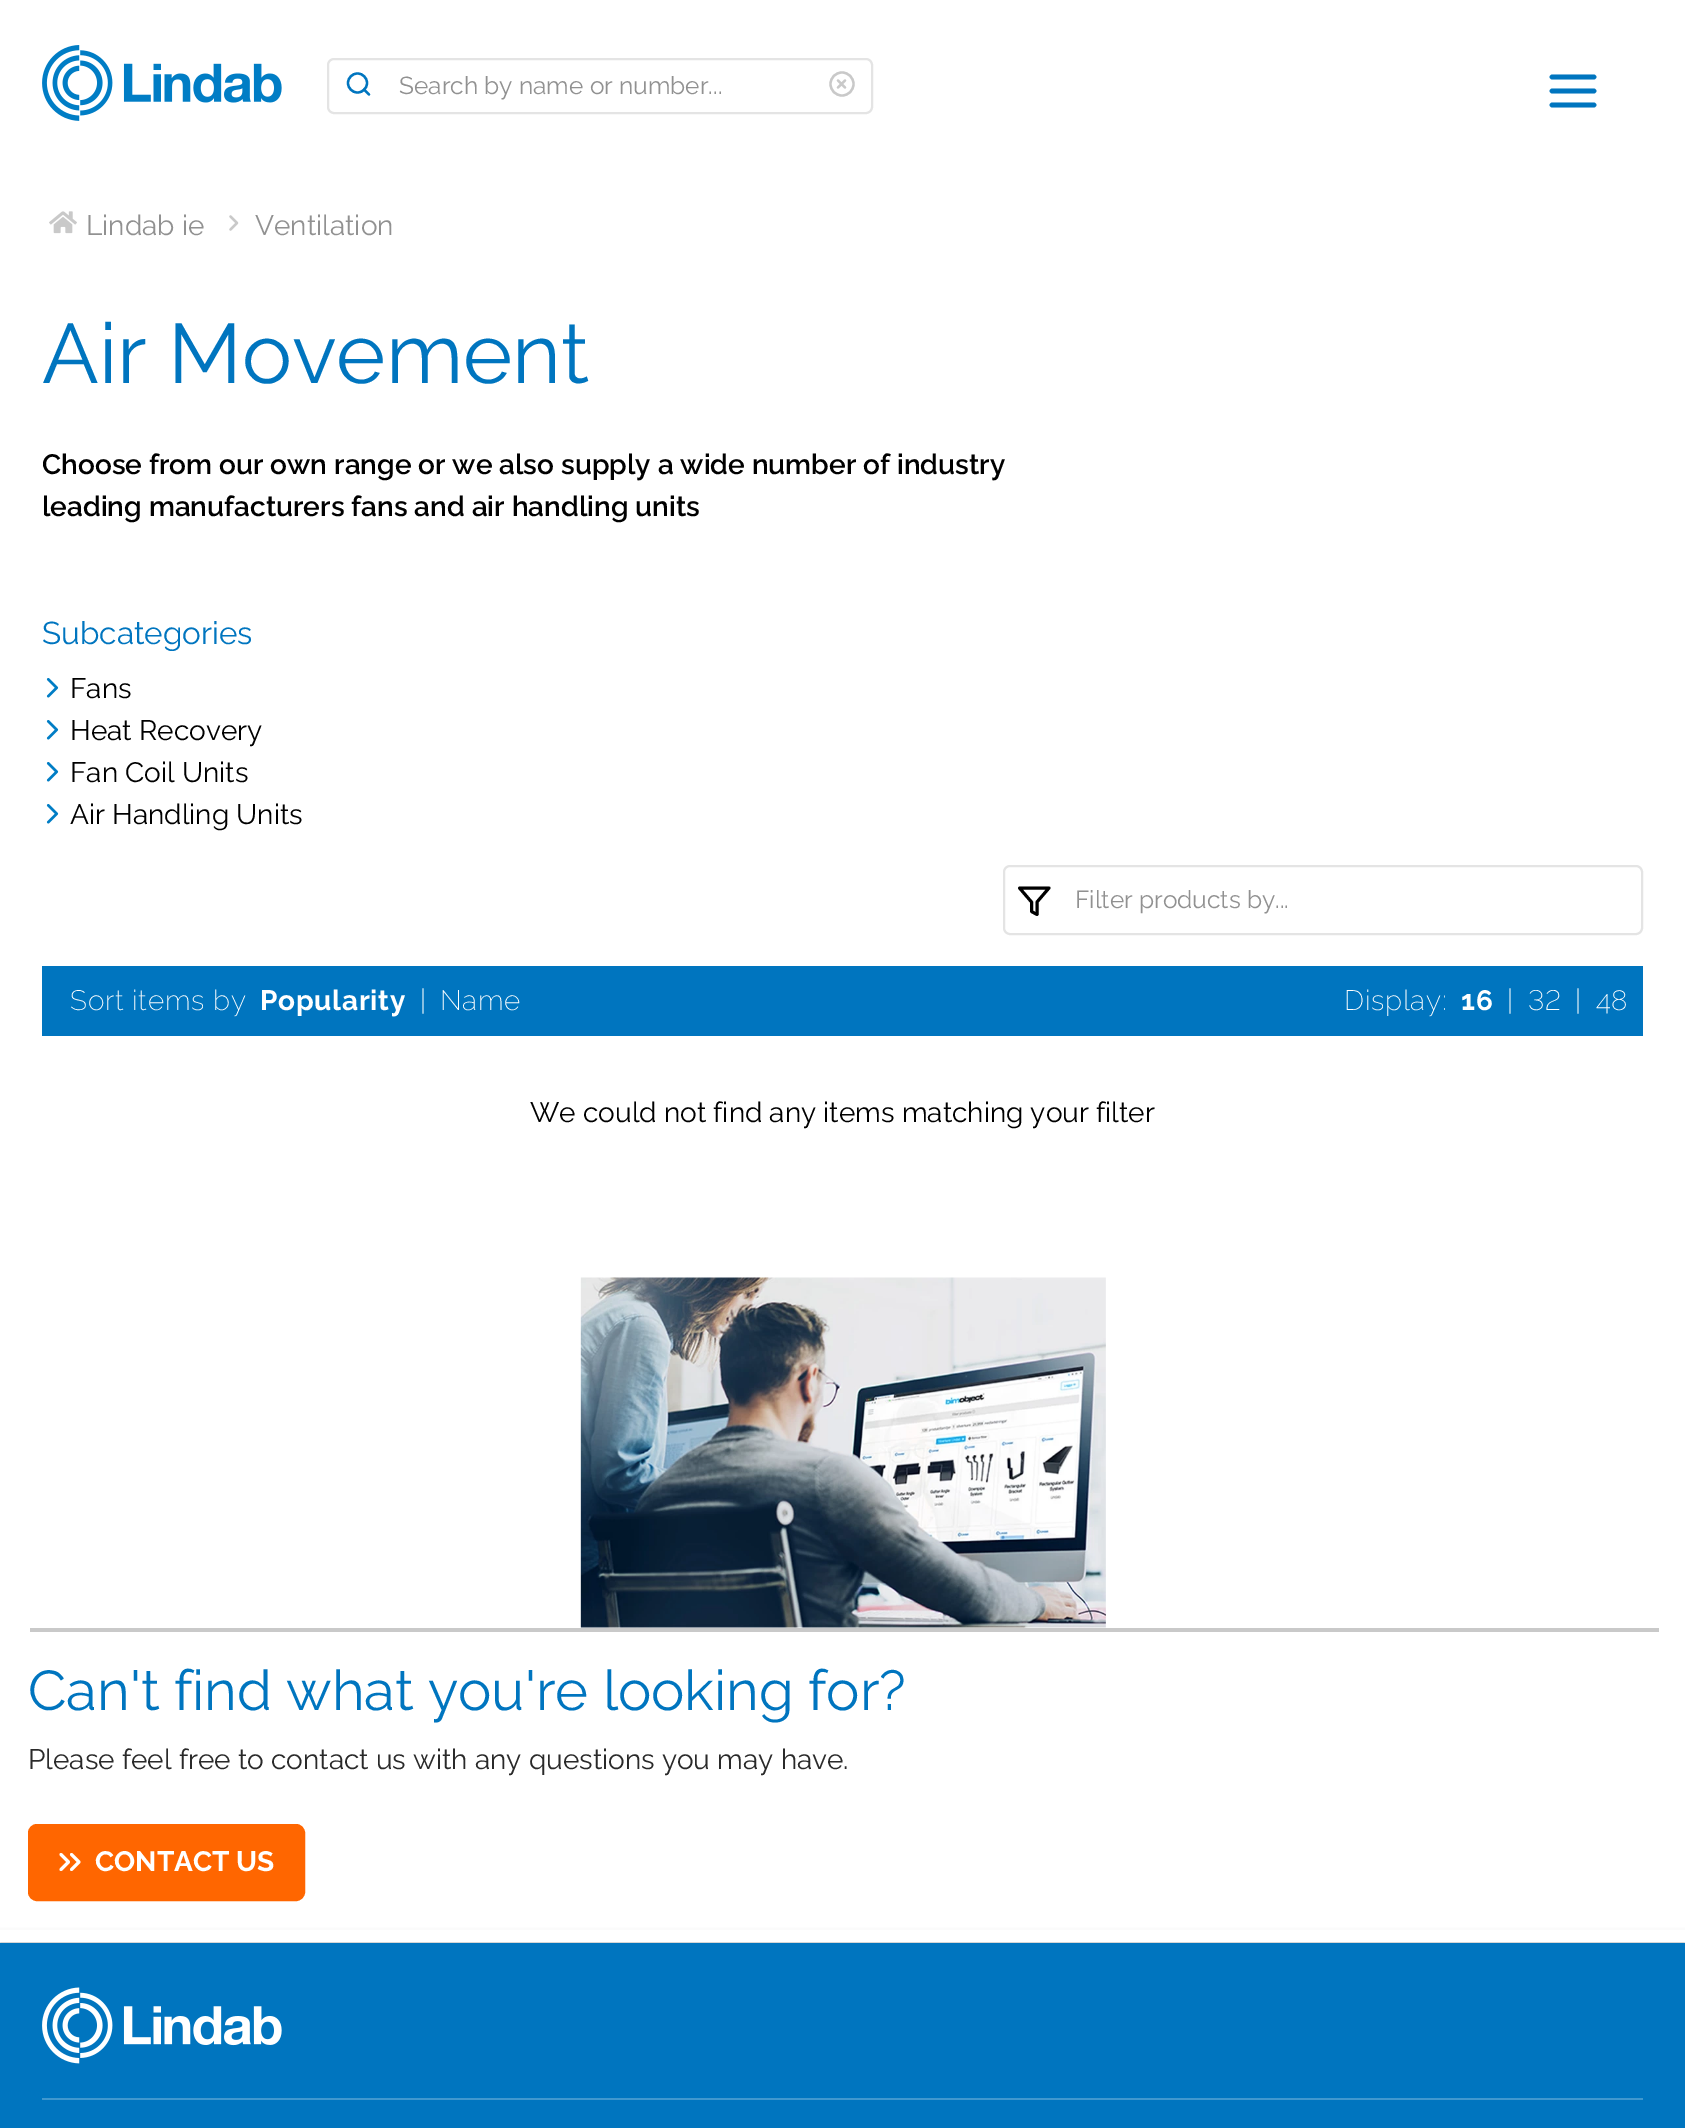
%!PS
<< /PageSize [1685 2128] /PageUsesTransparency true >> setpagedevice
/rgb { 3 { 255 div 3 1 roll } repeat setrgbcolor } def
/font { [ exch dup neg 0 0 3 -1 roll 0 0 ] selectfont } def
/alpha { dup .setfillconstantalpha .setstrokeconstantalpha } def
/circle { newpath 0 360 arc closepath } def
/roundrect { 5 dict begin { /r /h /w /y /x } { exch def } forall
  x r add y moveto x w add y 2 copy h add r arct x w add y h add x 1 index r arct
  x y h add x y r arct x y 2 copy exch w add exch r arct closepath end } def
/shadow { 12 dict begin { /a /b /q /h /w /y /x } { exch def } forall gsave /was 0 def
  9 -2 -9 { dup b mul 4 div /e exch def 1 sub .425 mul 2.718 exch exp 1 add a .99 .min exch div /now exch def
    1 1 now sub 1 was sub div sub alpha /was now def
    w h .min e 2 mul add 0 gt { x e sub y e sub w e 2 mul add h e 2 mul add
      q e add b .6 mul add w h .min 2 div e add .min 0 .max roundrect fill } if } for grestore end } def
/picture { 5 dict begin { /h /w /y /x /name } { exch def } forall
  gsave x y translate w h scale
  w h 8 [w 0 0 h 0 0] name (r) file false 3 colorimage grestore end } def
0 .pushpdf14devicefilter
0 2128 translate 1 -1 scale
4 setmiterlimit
255 255 255 rgb
0 0 1685 2128 rectfill
(img/1.rgb) 42 45 240 76 picture
228 228 228 rgb
2 setlinewidth
328 59 544 54 6 roundrect stroke
0 117 191 rgb
2.3 setlinewidth
357.5 83 9.5 circle stroke
1 setlinecap
1 setlinejoin
369 94.5 moveto 364 89.5 lineto stroke
201 201 201 rgb
0 setlinecap
0 setlinejoin
842 84 11.5 circle stroke
1 setlinecap
1 setlinejoin
845 80.5 moveto 838 87.5 lineto 838 80.5 moveto 845 87.5 lineto stroke
0 117 191 rgb
4.7 setlinewidth
1552 91 moveto 1594 91 lineto 1552 77 moveto 1594 77 lineto 1552 105 moveto 1594 105 lineto stroke
(img/2.rgb) 49 211 28 23 picture
201 201 201 rgb
2.2 setlinewidth
230.5 229.5 moveto 237 223 lineto 230.5 216.5 lineto stroke
(img/3.rgb) 46 678 13 20 picture
(img/3.rgb) 46 720 13 20 picture
(img/3.rgb) 46 762 13 20 picture
(img/3.rgb) 46 804 13 20 picture
228 228 228 rgb
2 setlinewidth
0 setlinecap
0 setlinejoin
1004 866 638 68 6 roundrect stroke
0 0 0 rgb
2.9 setlinewidth
1 setlinecap
1 setlinejoin
1049 888 moveto 1019.5 888 lineto 1031.5 902 lineto 1031.5 911.5 lineto 1037 914.5 lineto 1037 902 lineto closepath stroke
0 117 191 rgb
42 966 1601 70 rectfill
(img/4.rgb) 580 1277 526 351 picture
201 201 201 rgb
30 1628 1629 4 rectfill
255 102 0 rgb
30 1826 273 73 7 roundrect gsave fill grestore
4 setlinewidth
0 setlinecap
0 setlinejoin
stroke
255 255 255 rgb
2.9 setlinewidth
1 setlinecap
1 setlinejoin
71.5 1869.5 moveto 79 1862 lineto 71.5 1854.5 lineto 61 1869.5 moveto 68.5 1862 lineto 61 1854.5 lineto stroke
42 42 42 rgb
0 1943 1685 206 0 7 0.2 shadow
0 1943 1685 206 0 7 0.2 shadow
255 255 255 rgb
0 1930 1685 12 rectfill
0 117 191 rgb
0 1943 1685 185 rectfill
(img/5.rgb) 42 1987 240 77 picture
64 152 207 rgb
42 2098 1601 2 rectfill
/Raleway-Thin 24.5 font
145 145 145 rgb
399 94 moveto (Search by name or number...) show
/Raleway-Thin 28 font
86 235 moveto (Lindab ie) show
255 235 moveto (Ventilation) show
/Raleway-Thin 84 font
0 117 191 rgb
42 383 moveto (Air Movement) show
/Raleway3-Thin 28 font
0 0 0 rgb
42 474 moveto (Choose from our own range or we also supply a wide number of industry) show
42 516 moveto (leading manufacturers fans and air handling units) show
/Raleway-Thin 31.5 font
0 117 191 rgb
42 644 moveto (Subcategories) show
/Raleway-Thin 28 font
0 0 0 rgb
[
  [(Fans) 70 698]
  [(Heat Recovery) 70 740]
  [(Fan Coil Units) 70 782]
  [(Air Handling Units) 70 824]
] { aload pop moveto show } forall
/Raleway-Thin 24.5 font
145 145 145 rgb
1075 908 moveto (Filter products by...) show
/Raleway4-Thin 28 font
255 255 255 rgb
70 1010 moveto 0.75 0 (Sort items by) ashow
/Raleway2-Thin 28 font
260 1010 moveto 0.75 0 (Popularity) ashow
/Raleway4-Thin 28 font
420 1010 moveto 0.75 0 (|) ashow
440 1010 moveto 0.75 0 (Name) ashow
1344 1010 moveto 0.75 0 (Display:) ashow
/Raleway2-Thin 28 font
1461 1010 moveto 0.75 0 (16) ashow
/Raleway4-Thin 28 font
1507 1010 moveto 0.75 0 (|) ashow
/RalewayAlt-Thin 28 font
1528 1010 moveto 0.75 0 (32) ashow
/Raleway4-Thin 28 font
1575 1010 moveto 0.75 0 (|) ashow
1596 1010 moveto 0.75 0 (48) ashow
/Raleway-Thin 28 font
0 0 0 rgb
530 1122 moveto (We could not find any items matching your filter) show
/Raleway-Thin 56 font
0 117 191 rgb
28 1710 moveto (Can't find what you're looking for?) show
/Raleway-Thin 28 font
42 42 42 rgb
28 1769 moveto (Please feel free to contact us with any questions you may have.) show
/Raleway2-Thin 28 font
255 255 255 rgb
95 1871 moveto (CONTACT US) show
.poppdf14devicefilter showpage
